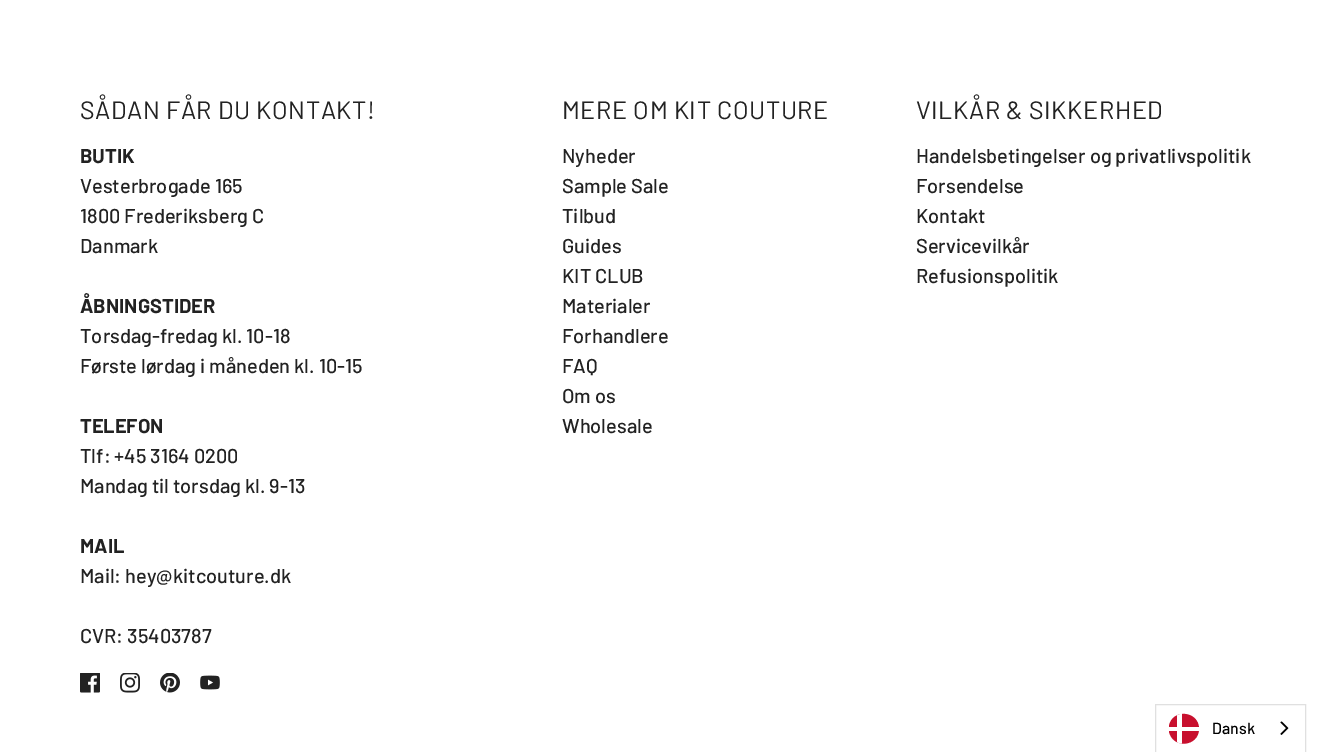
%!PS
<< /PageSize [1331 752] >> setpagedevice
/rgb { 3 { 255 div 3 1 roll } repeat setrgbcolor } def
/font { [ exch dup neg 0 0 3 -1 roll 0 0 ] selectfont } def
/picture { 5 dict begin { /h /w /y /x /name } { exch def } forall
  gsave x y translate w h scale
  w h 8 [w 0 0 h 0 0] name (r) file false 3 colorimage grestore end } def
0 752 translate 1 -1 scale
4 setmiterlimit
255 255 255 rgb
0 0 1331 752 rectfill
(img/1.rgb) 80 673 20 20 picture
(img/2.rgb) 120 673 20 20 picture
(img/3.rgb) 160 673 20 20 picture
(img/4.rgb) 200 675 20 15 picture
224 224 224 rgb
1155.5 704.5 150 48 rectstroke
200 16 46 rgb
1169 726 moveto 1172 708.5 1199 710.5 1199 729 curveto 1198.5 747 1172.5 749 1169 731.5 curveto closepath fill
255 255 255 rgb
1177 715.5 moveto 1178.5 714.5 1180 714 1182 714 curveto 1182 743.5 lineto 1180 743.5 1178.5 743 1177 742 curveto closepath fill
1169 727 30 4 rectfill
(img/5.rgb) 1280 721 9 14 picture
/Barlow-Regular 25 font
34 34 34 rgb
80 119 moveto 0.6 0 (SÅDAN FÅR DU KONTAKT!) ashow
/Barlow-Bold 20 font
80 163 moveto (BUTIK) show
/Barlow-Medium 20 font
[
  [(Vesterbrogade 165) 80 193]
  [(1800 Frederiksberg C) 80 223]
  [(Danmark) 80 253]
] { aload pop moveto show } forall
/Barlow-Bold 20 font
80 313 moveto (ÅBNINGSTIDER) show
/Barlow-Medium 20 font
80 343 moveto (Torsdag-fredag kl. 10-18) show
80 373 moveto (Første lørdag i måneden kl. 10-15) show
/Barlow-Bold 20 font
80 433 moveto (TELEFON) show
/Barlow-Medium 20 font
80 463 moveto (Tlf: +45 3164 0200) show
80 493 moveto (Mandag til torsdag kl. 9-13) show
/Barlow-Bold 20 font
80 553 moveto (MAIL) show
/Barlow-Medium 20 font
80 583 moveto (Mail: hey@kitcouture.dk) show
80 643 moveto (CVR: 35403787) show
/Barlow-Regular 25 font
562 119 moveto 0.6 0 (MERE OM KIT COUTURE) ashow
/Barlow-Medium 20 font
[
  [(Nyheder) 562 163]
  [(Sample Sale) 562 193]
  [(Tilbud) 562 223]
  [(Guides) 562 253]
  [(KIT CLUB) 562 283]
  [(Materialer) 562 313]
  [(Forhandlere) 562 343]
  [(FAQ) 562 373]
  [(Om os) 562 403]
  [(Wholesale) 562 433]
] { aload pop moveto show } forall
/Barlow-Regular 25 font
916 119 moveto 0.6 0 (VILKÅR & SIKKERHED) ashow
/Barlow-Medium 20 font
[
  [(Handelsbetingelser og privatlivspolitik) 916 163]
  [(Forsendelse) 916 193]
  [(Kontakt) 916 223]
  [(Servicevilkår) 916 253]
  [(Refusionspolitik) 916 283]
] { aload pop moveto show } forall
/Barlow-Medium 16 font
0 0 0 rgb
1212 734 moveto (Dansk) show
showpage
